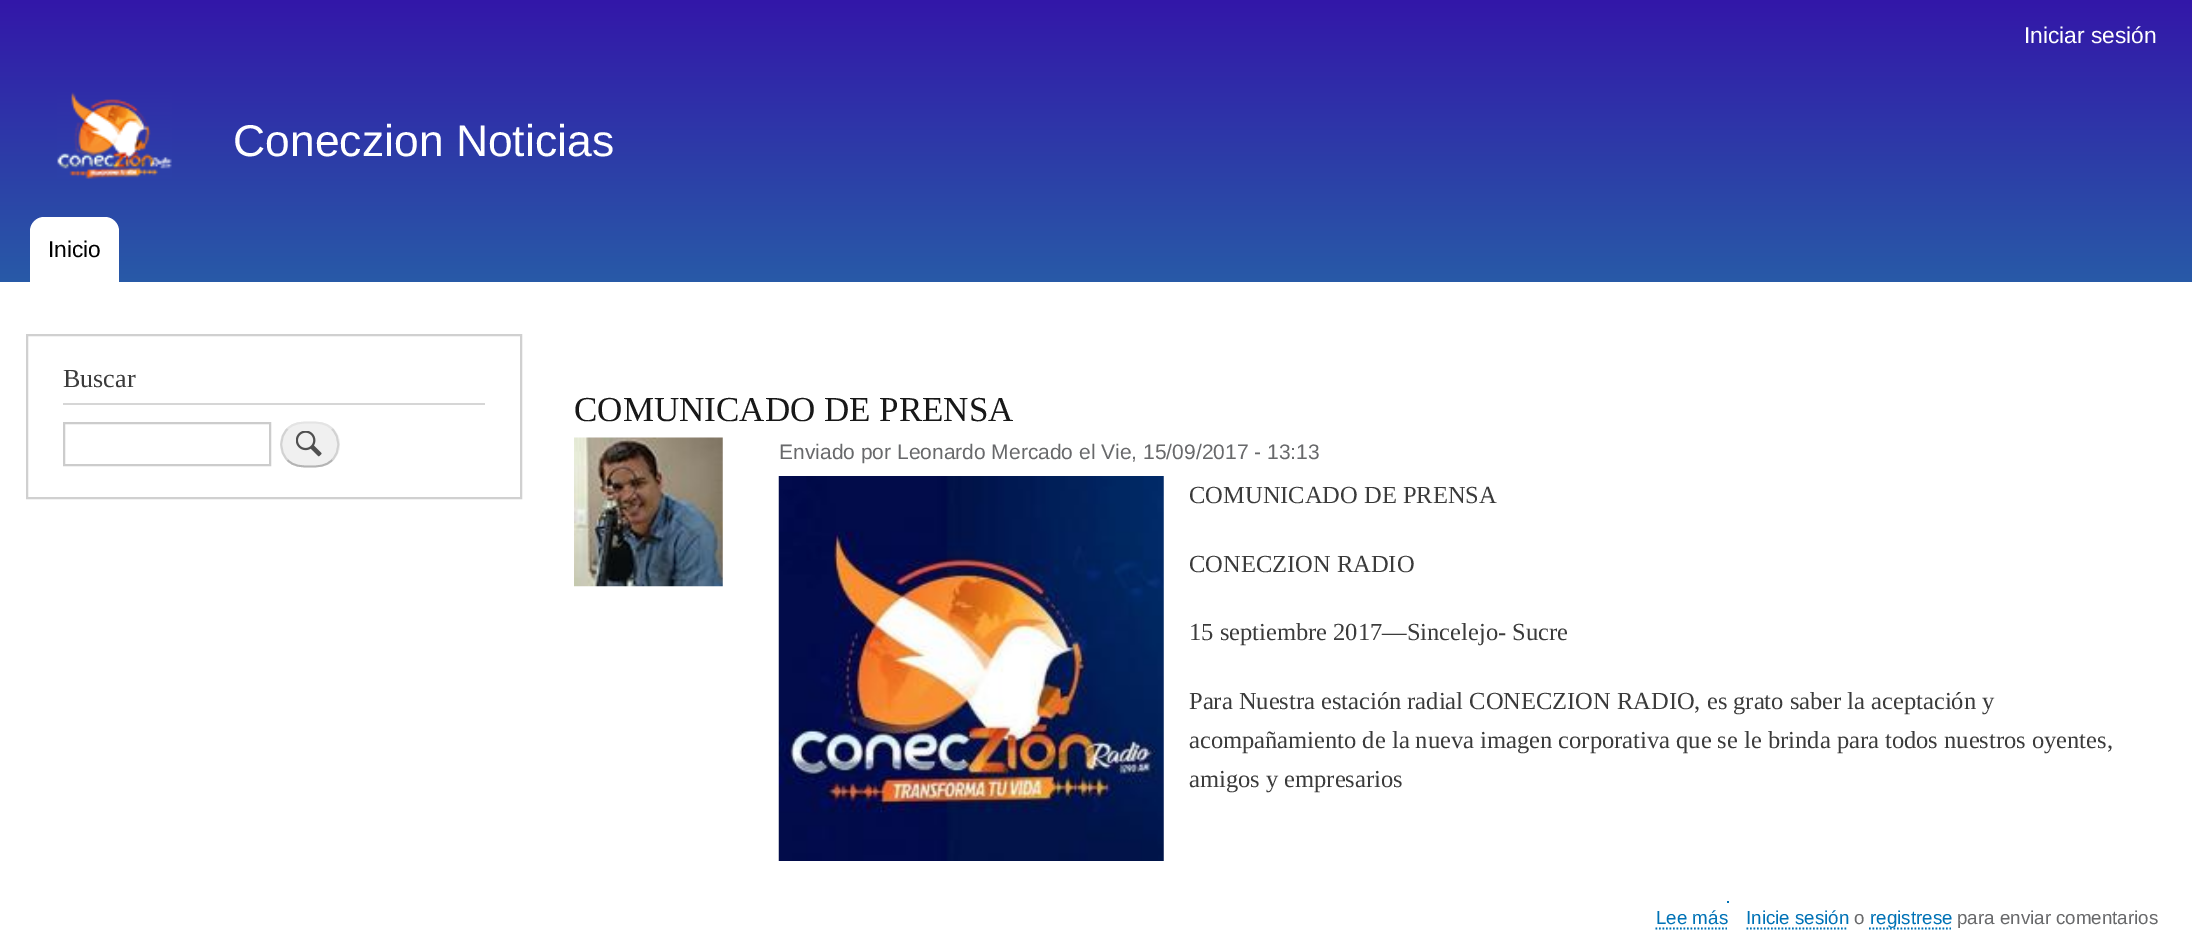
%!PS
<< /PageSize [2192 951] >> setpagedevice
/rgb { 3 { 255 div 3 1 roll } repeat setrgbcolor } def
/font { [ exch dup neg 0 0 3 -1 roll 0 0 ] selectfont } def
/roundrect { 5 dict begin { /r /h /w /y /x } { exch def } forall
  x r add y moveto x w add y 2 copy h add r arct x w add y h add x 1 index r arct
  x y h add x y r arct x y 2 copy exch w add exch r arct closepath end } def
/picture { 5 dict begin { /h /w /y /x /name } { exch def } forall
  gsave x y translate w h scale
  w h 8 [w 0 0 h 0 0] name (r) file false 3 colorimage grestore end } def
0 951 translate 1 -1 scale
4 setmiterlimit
255 255 255 rgb
0 0 2192 951 rectfill
gsave 0 0 moveto 2192 0 lineto 2192 282 lineto 0 282 lineto closepath clip newpath
<< /ShadingType 2 /ColorSpace /DeviceRGB /Coords [1096 0 1096 282] /Extend [true true] /Function << /FunctionType 2 /Domain [0 1] /C0 [0.2 0.09 0.663] /C1 [0.157 0.353 0.655] /N 1 >> >> shfill grestore
(img/1.rgb) 57 92 115 87 picture
44 217 moveto 105 217 lineto 112.5 217 119 223.5 119 231 curveto 119 282 lineto 30 282 lineto 30 231 lineto 30 223.5 36.5 217 44 217 curveto closepath fill
208 208 208 rgb
2 setlinewidth
27 335 494 163 rectstroke
214 214 214 rgb
63 403 422 2 rectfill
204 204 204 rgb
64 423 206 42 rectstroke
240 240 240 rgb
280 422 60 45 22.5 roundrect fill
(img/2.rgb) 296 431 26 26 picture
228 228 228 rgb
1.8 setlinewidth
287.5 429 moveto 293.5 422.5 301.5 422.5 310 422.5 curveto 318 422.5 326 422.5 332 429 curveto stroke
210 210 210 rgb
332 429 moveto 340.5 437.5 340.5 451.5 332 460 curveto stroke
180 180 180 rgb
332 460 moveto 326 466.5 318 466.5 310 466.5 curveto 301.5 466.5 293.5 466.5 287.5 460 curveto stroke
210 210 210 rgb
287.5 460 moveto 279 451.5 279 437.5 287.5 429 curveto stroke
(img/3.rgb) 574 437 149 150 picture
(img/4.rgb) 778 476 386 385 picture
0 114 182 rgb
[1.75 1.75] 0 setdash
1655.5 928.5 moveto 1727 928.5 lineto stroke
1727 901 2 2 rectfill
1746.5 928.5 moveto 1848 928.5 lineto stroke
1869 928.5 moveto 1951 928.5 lineto stroke
/LiberationSans-Regular 22.75 font
255 255 255 rgb
2024 43 moveto (Iniciar sesión) show
/LiberationSans-Regular 44.5 font
233 156 moveto (Coneczion Noticias) show
/LiberationSans-Regular 22.75 font
0 0 0 rgb
48 257 moveto (Inicio) show
/LiberationSerif-Regular 26 font
59 59 59 rgb
63 387 moveto (Buscar) show
/LiberationSerif-Regular 35 font
24 24 24 rgb
574 421 moveto (COMUNICADO DE PRENSA) show
/LiberationSans-Regular 21 font
104 105 107 rgb
779 459 moveto (Enviado por Leonardo Mercado el Vie, 15/09/2017 - 13:13) show
/LiberationSerif-Regular 24.5 font
59 59 59 rgb
[
  [(COMUNICADO DE PRENSA) 1189 503]
  [(CONECZION RADIO) 1189 572]
  [(15 septiembre 2017—Sincelejo- Sucre) 1189 640]
  [(Para Nuestra estación radial CONECZION RADIO, es grato saber la aceptación y) 1189 709]
  [(acompañamiento de la nueva imagen corporativa que se le brinda para todos nuestros oyentes,) 1189 748]
  [(amigos y empresarios) 1189 787]
] { aload pop moveto show } forall
/LiberationSans-Regular 18.75 font
0 114 182 rgb
1656 924 moveto (Lee más) show
1746 924 moveto (Inicie sesión) show
104 105 107 rgb
1854 924 moveto (o) show
0 114 182 rgb
1870 924 moveto (registrese) show
104 105 107 rgb
1957 924 moveto (para enviar comentarios) show
showpage
